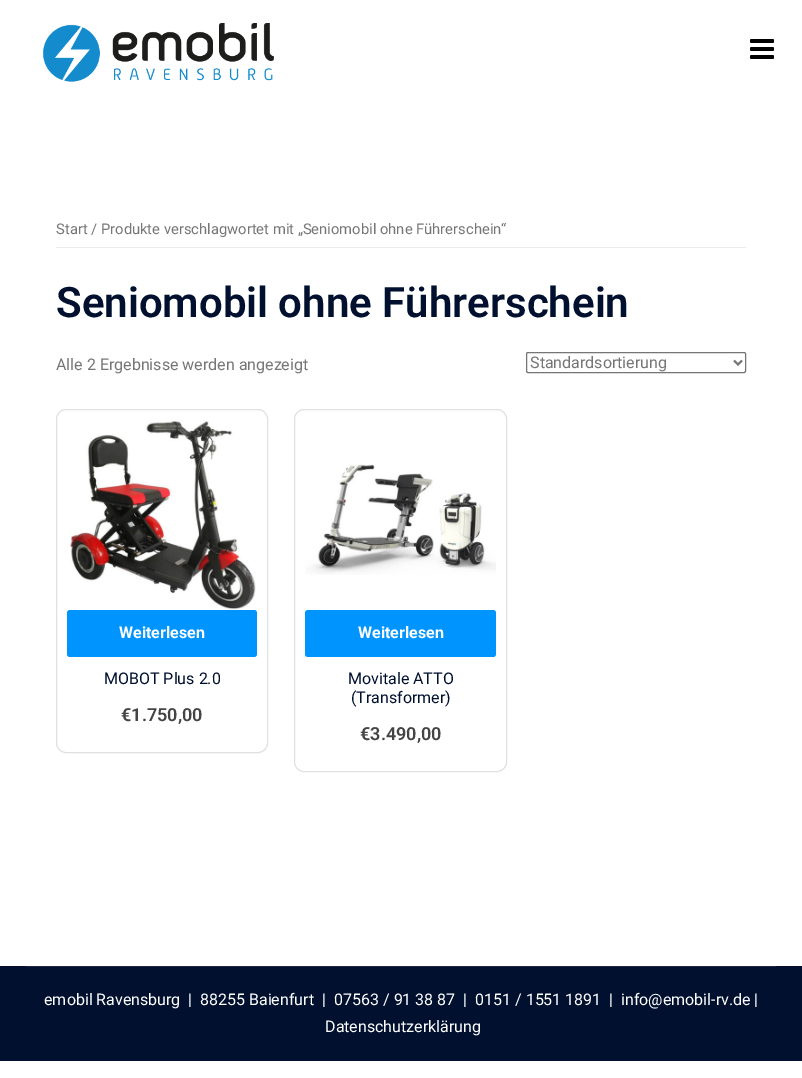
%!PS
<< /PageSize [802 1078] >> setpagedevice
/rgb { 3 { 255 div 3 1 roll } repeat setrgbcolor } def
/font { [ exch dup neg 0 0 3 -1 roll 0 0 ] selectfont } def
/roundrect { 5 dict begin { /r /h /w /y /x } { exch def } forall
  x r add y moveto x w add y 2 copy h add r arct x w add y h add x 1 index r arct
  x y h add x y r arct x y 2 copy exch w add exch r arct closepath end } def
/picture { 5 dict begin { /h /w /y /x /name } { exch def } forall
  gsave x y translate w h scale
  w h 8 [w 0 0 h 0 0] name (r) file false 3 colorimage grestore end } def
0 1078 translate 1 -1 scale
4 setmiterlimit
255 255 255 rgb
0 0 802 1078 rectfill
(img/1.rgb) 43 23 231 59 picture
(img/2.rgb) 750 39 24 20 picture
235 235 235 rgb
56 247 690 1 rectfill
118 118 118 rgb
526.5 352.5 219 20 1.5 roundrect stroke
2 setlinewidth
734 360.5 moveto 738 364.5 lineto 742 360.5 lineto stroke
225 225 225 rgb
1 setlinewidth
56.5 409.5 211 343 9.5 roundrect stroke
(img/3.rgb) 70 420 186 190 picture
0 148 255 rgb
67 610 190 47 3 roundrect fill
225 225 225 rgb
294.5 409.5 212 362 9.5 roundrect stroke
(img/4.rgb) 305 464 191 111 picture
0 148 255 rgb
305 610 191 47 3 roundrect fill
0 16 46 rgb
0 966 802 95 rectfill
26 40 67 rgb
26 966 750 1 rectfill
/Roboto-Regular 14.75 font
118 118 118 rgb
56 234 moveto (Start / Produkte verschlagwortet mit „Seniomobil ohne Führerschein“) show
/Roboto-SemiBold 42 font
0 16 46 rgb
56 317 moveto (Seniomobil ohne Führerschein) show
/Roboto-Regular 16 font
118 118 118 rgb
56 370 moveto (Alle 2 Ergebnisse werden angezeigt) show
530 368 moveto (Standardsortierung) show
/Roboto-Bold 16 font
255 255 255 rgb
119 638 moveto (Weiterlesen) show
/Roboto-Regular 16 font
0 16 46 rgb
104 684 moveto (MOBOT Plus 2.0) show
/Roboto-SemiBold 18 font
68 68 68 rgb
121 721 moveto (€1.750,00) show
/Roboto-Bold 16 font
255 255 255 rgb
358 638 moveto (Weiterlesen) show
/Roboto-Regular 16 font
0 16 46 rgb
348 684 moveto (Movitale ATTO) show
351 703 moveto (\(Transformer\)) show
/Roboto-SemiBold 18 font
68 68 68 rgb
360 740 moveto (€3.490,00) show
/Roboto-Regular 16 font
255 255 255 rgb
[
  [(emobil Ravensburg) 44 1005]
  [(|) 188 1005]
  [(88255 Baienfurt) 200 1005]
  [(|) 322 1005]
  [(07563 / 91 38 87) 334 1005]
  [(|) 463 1005]
  [(0151 / 1551 1891) 475 1005]
  [(|) 609 1005]
  [(info@emobil-rv.de |) 621 1005]
  [(Datenschutzerklärung) 325 1032]
] { aload pop moveto show } forall
showpage
